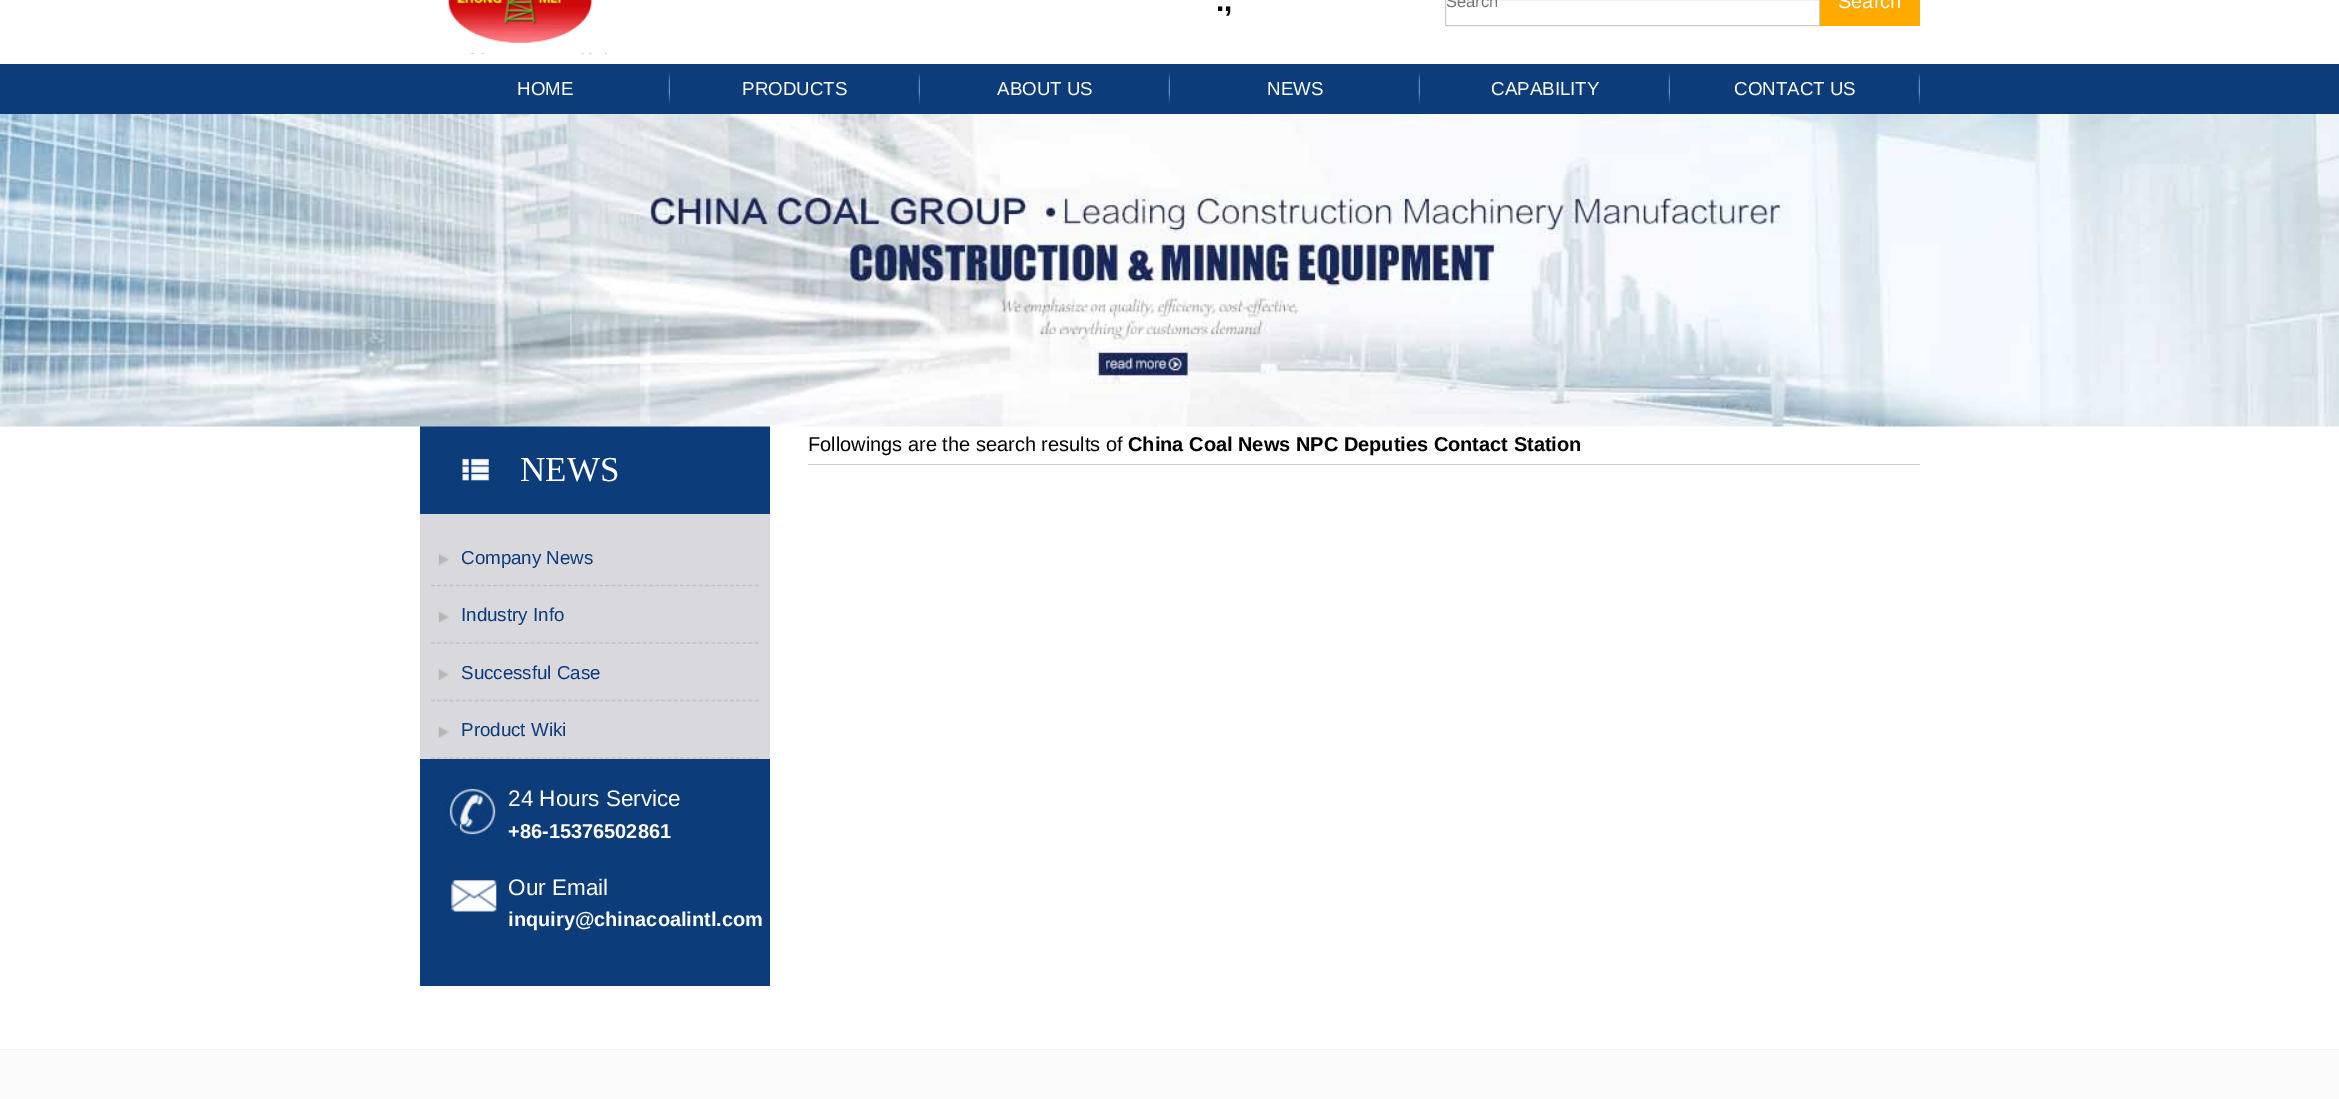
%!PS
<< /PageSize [2339 1099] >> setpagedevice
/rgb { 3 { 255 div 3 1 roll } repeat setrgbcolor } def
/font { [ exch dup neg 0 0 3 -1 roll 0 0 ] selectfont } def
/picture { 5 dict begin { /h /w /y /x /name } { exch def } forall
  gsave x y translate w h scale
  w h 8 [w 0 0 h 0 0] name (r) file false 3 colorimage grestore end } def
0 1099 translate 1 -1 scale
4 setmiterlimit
255 255 255 rgb
0 0 2339 1099 rectfill
204 204 204 rgb
1445.5 -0.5 374 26 rectstroke
255 170 0 rgb
1820 0 100 26 rectfill
(img/1.rgb) 448 0 160 55 picture
12 60 122 rgb
0 64 2339 50 rectfill
(img/2.rgb) 668 73 2 32 picture
(img/2.rgb) 918 73 2 32 picture
(img/2.rgb) 1168 73 2 32 picture
(img/2.rgb) 1418 73 2 32 picture
(img/2.rgb) 1668 73 2 32 picture
(img/2.rgb) 1918 73 2 32 picture
420 426 350 88 rectfill
(img/3.rgb) 0 114 2339 313 picture
204 204 204 rgb
808 464 1112 1 rectfill
217 216 221 rgb
420 514 350 245 rectfill
(img/4.rgb) 457 451 38 30 picture
(img/5.rgb) 438 554 11 12 picture
194 194 194 rgb
1.2 setlinewidth
[3.75 2.48] 0 setdash
431 585.5 moveto 759 585.5 lineto stroke
(img/6.rgb) 438 611 11 12 picture
431 643 moveto 759 643 lineto stroke
(img/5.rgb) 438 669 11 12 picture
431 700.5 moveto 759 700.5 lineto stroke
(img/6.rgb) 438 726 11 12 picture
431 758 moveto 759 758 lineto stroke
12 60 122 rgb
420 759 350 227 rectfill
(img/7.rgb) 445 784 51 51 picture
(img/8.rgb) 451 880 46 32 picture
251 251 251 rgb
0 1050 2339 49 rectfill
240 240 240 rgb
0 1049 2339 1 rectfill
/LiberationSans-Regular 16.5 font
117 117 117 rgb
1446 7 moveto (Search) show
/LiberationSans-Regular 20 font
255 255 255 rgb
1838 8 moveto (Search) show
/LiberationSans-Bold 30 font
0 0 0 rgb
1216 11 moveto (.,) show
/LiberationSans-Regular 18.75 font
255 255 255 rgb
[
  [(HOME) 517 95]
  [(PRODUCTS) 742 95]
  [(ABOUT US) 997 95]
  [(NEWS) 1267 95]
  [(CAPABILITY) 1491 95]
  [(CONTACT US) 1734 95]
] { aload pop moveto show } forall
/LiberationSans-Regular 20 font
0 0 0 rgb
808 451 moveto (Followings are the search results of) show
/LiberationSans-Bold 20 font
1128 451 moveto (China Coal News NPC Deputies Contact Station) show
/LiberationSerif-Regular 35 font
255 255 255 rgb
520 481 moveto (NEWS) show
/LiberationSans-Regular 18.75 font
12 60 122 rgb
[
  [(Company News) 461 564]
  [(Industry Info) 461 621]
  [(Successful Case) 461 679]
  [(Product Wiki) 461 736]
] { aload pop moveto show } forall
/LiberationSans-Regular 22.5 font
255 255 255 rgb
508 806 moveto (24 Hours Service) show
/LiberationSans-Bold 20 font
508 838 moveto (+86-15376502861) show
/LiberationSans-Regular 22.5 font
508 895 moveto (Our Email) show
/LiberationSans-Bold 20 font
508 926 moveto (inquiry@chinacoalintl.com) show
showpage
